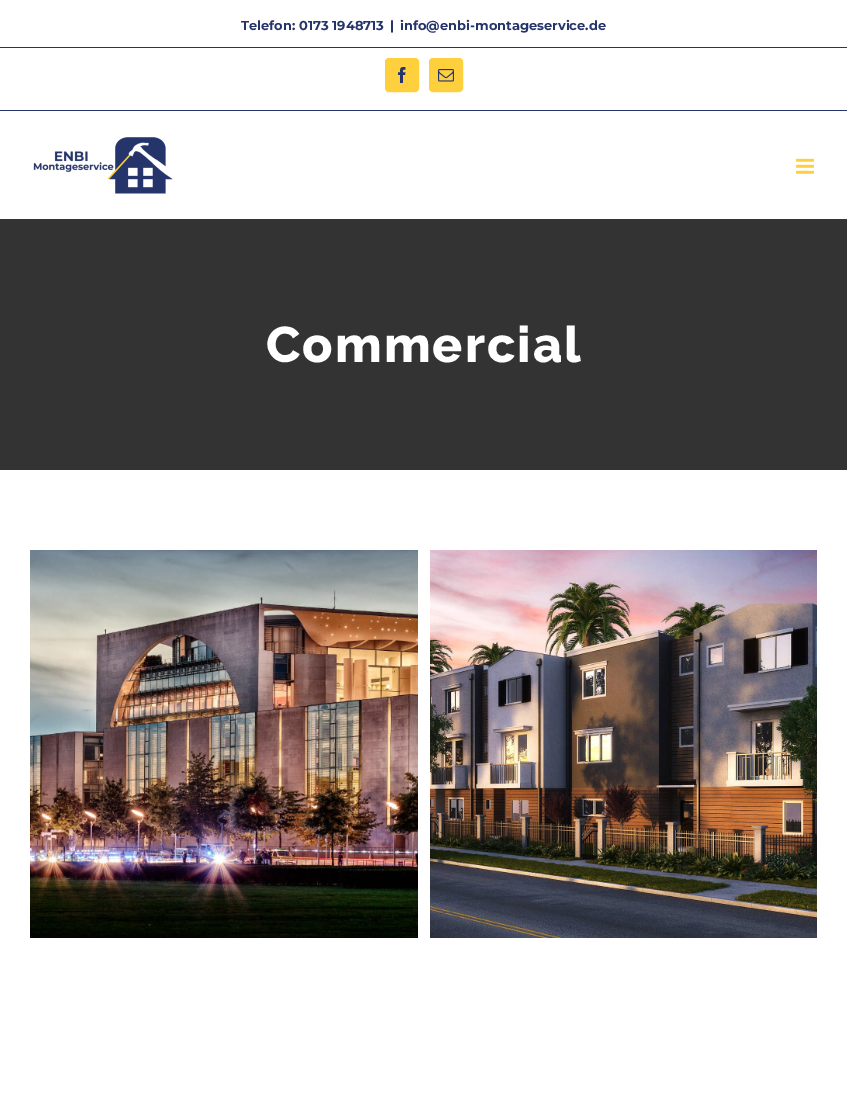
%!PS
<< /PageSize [847 1095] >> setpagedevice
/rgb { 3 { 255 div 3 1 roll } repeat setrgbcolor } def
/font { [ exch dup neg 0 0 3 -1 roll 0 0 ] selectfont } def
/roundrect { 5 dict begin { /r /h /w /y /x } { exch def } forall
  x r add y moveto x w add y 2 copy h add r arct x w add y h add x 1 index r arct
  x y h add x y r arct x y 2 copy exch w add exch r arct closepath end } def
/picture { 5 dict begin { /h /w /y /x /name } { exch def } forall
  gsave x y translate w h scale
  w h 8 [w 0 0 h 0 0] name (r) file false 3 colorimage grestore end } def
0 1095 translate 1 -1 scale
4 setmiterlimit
255 255 255 rgb
0 0 847 1095 rectfill
37 52 107 rgb
0 110 847 1 rectfill
0 47 847 1 rectfill
254 208 61 rgb
385.5 58.5 33 33 3.5 roundrect gsave fill grestore
stroke
(img/1.rgb) 398 67 8 16 picture
429.5 58.5 33 33 3.5 roundrect gsave fill grestore
stroke
(img/2.rgb) 438 69 16 13 picture
37 52 107 rgb
0 219 847 1 rectfill
(img/3.rgb) 33 137 143 57 picture
(img/4.rgb) 796 158 18 16 picture
51 51 51 rgb
0 220 847 250 rectfill
(img/5.rgb) 30 550 388 388 picture
(img/6.rgb) 430 550 387 388 picture
/Montserrat-Bold 13 font
37 52 107 rgb
[
  [(Telefon: 0173 1948713) 241 30]
  [(|) 390 30]
  [(info@enbi-montageservice.de) 400 30]
] { aload pop moveto show } forall
/Raleway-ExtraBold 50 font
255 255 255 rgb
266 362 moveto 2 0 (Commercial) ashow
showpage
